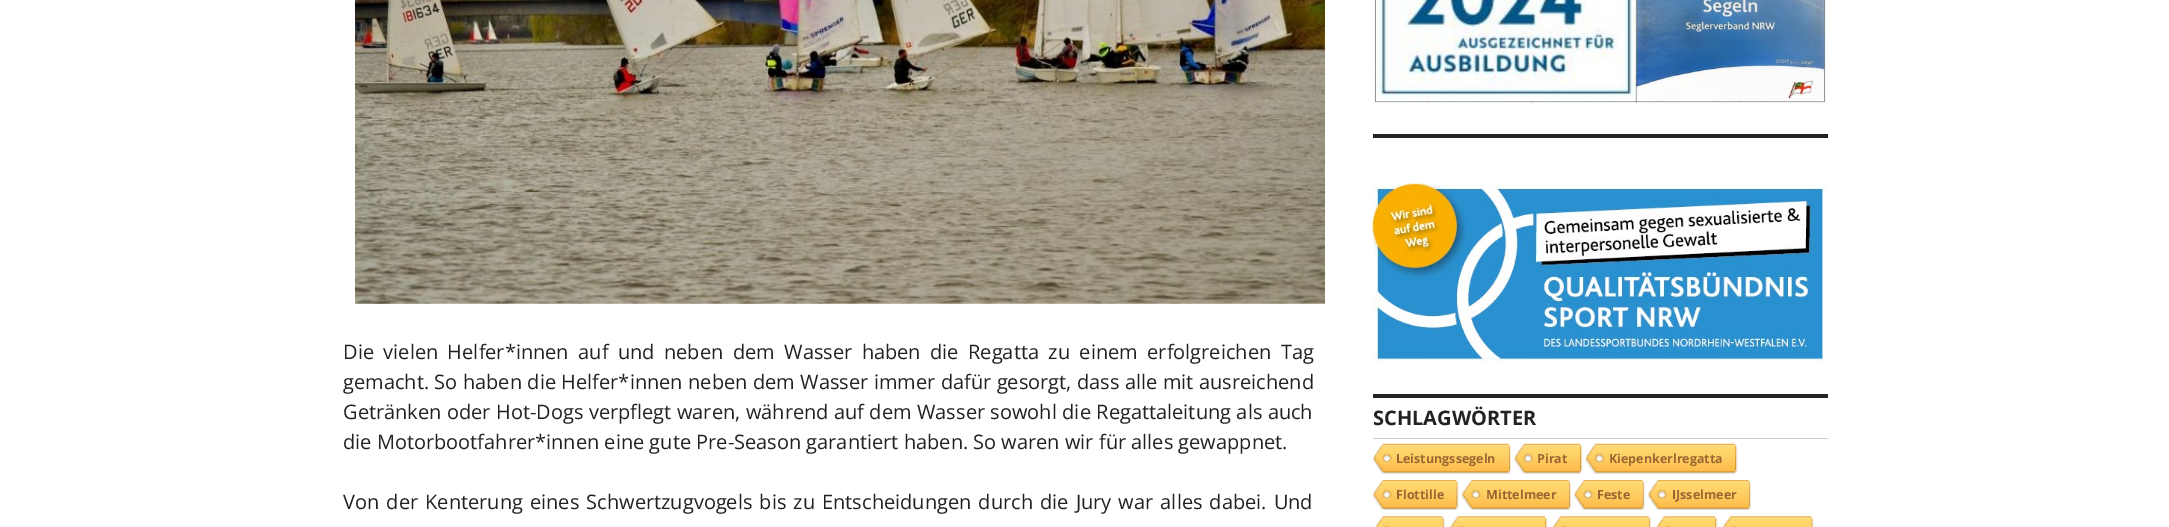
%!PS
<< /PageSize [2169 527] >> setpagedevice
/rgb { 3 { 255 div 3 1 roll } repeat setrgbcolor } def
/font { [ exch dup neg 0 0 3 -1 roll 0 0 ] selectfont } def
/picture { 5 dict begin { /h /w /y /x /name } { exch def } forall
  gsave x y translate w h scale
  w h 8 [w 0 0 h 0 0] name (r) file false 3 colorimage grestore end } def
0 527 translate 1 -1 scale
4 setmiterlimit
255 255 255 rgb
0 0 2169 527 rectfill
(img/1.rgb) 355 0 970 304 picture
(img/2.rgb) 1373 0 453 104 picture
34 34 34 rgb
1373 134 455 4 rectfill
(img/3.rgb) 1372 183 455 180 picture
1373 394 455 4 rectfill
204 204 204 rgb
1373 438 455 1 rectfill
(img/4.rgb) 1373 443 136 31 picture
(img/5.rgb) 1508 444 3 30 picture
(img/6.rgb) 1514 443 66 31 picture
(img/7.rgb) 1580 444 3 30 picture
(img/8.rgb) 1585 443 150 31 picture
(img/7.rgb) 1735 444 3 30 picture
(img/9.rgb) 1372 480 85 30 picture
(img/10.rgb) 1456 481 3 29 picture
(img/11.rgb) 1461 480 108 30 picture
(img/12.rgb) 1568 481 3 29 picture
(img/13.rgb) 1574 480 69 30 picture
(img/14.rgb) 1642 481 3 29 picture
(img/15.rgb) 1648 480 101 30 picture
(img/12.rgb) 1748 481 3 29 picture
(img/16.rgb) 1375 516 68 11 picture
(img/17.rgb) 1442 517 3 10 picture
(img/18.rgb) 1450 516 95 11 picture
(img/19.rgb) 1545 517 3 10 picture
(img/20.rgb) 1552 516 97 11 picture
(img/21.rgb) 1648 517 3 10 picture
(img/22.rgb) 1656 516 59 11 picture
(img/19.rgb) 1715 517 3 10 picture
(img/23.rgb) 1722 516 90 11 picture
(img/24.rgb) 1811 517 3 10 picture
/OpenSans-Regular 20 font
34 34 34 rgb
343 359 moveto 4.25 0 32 (Die vielen Helfer*innen auf und neben dem Wasser haben die Regatta zu einem erfolgreichen Tag) widthshow
343 389 moveto 0.25 0 32 (gemacht. So haben die Helfer*innen neben dem Wasser immer dafür gesorgt, dass alle mit ausreichend) widthshow
343 419 moveto 0.25 0 32 (Getränken oder Hot-Dogs verpflegt waren, während auf dem Wasser sowohl die Regattaleitung als auch) widthshow
343 449 moveto (die Motorbootfahrer*innen eine gute Pre-Season garantiert haben. So waren wir für alles gewappnet.) show
343 509 moveto 1.9 0 32 (Von der Kenterung eines Schwertzugvogels bis zu Entscheidungen durch die Jury war alles dabei. Und) widthshow
/OpenSans-Bold 20 font
1373 425 moveto (SCHLAGWÖRTER) show
/OpenSans-Bold 12.5 font
153 102 51 rgb
[
  [(Leistungssegeln) 1396 463]
  [(Pirat) 1537 463]
  [(Kiepenkerlregatta) 1609 463]
  [(Flottille) 1396 499]
  [(Mittelmeer) 1486 499]
  [(Feste) 1597 499]
  [(IJsselmeer) 1672 499]
] { aload pop moveto show } forall
showpage
